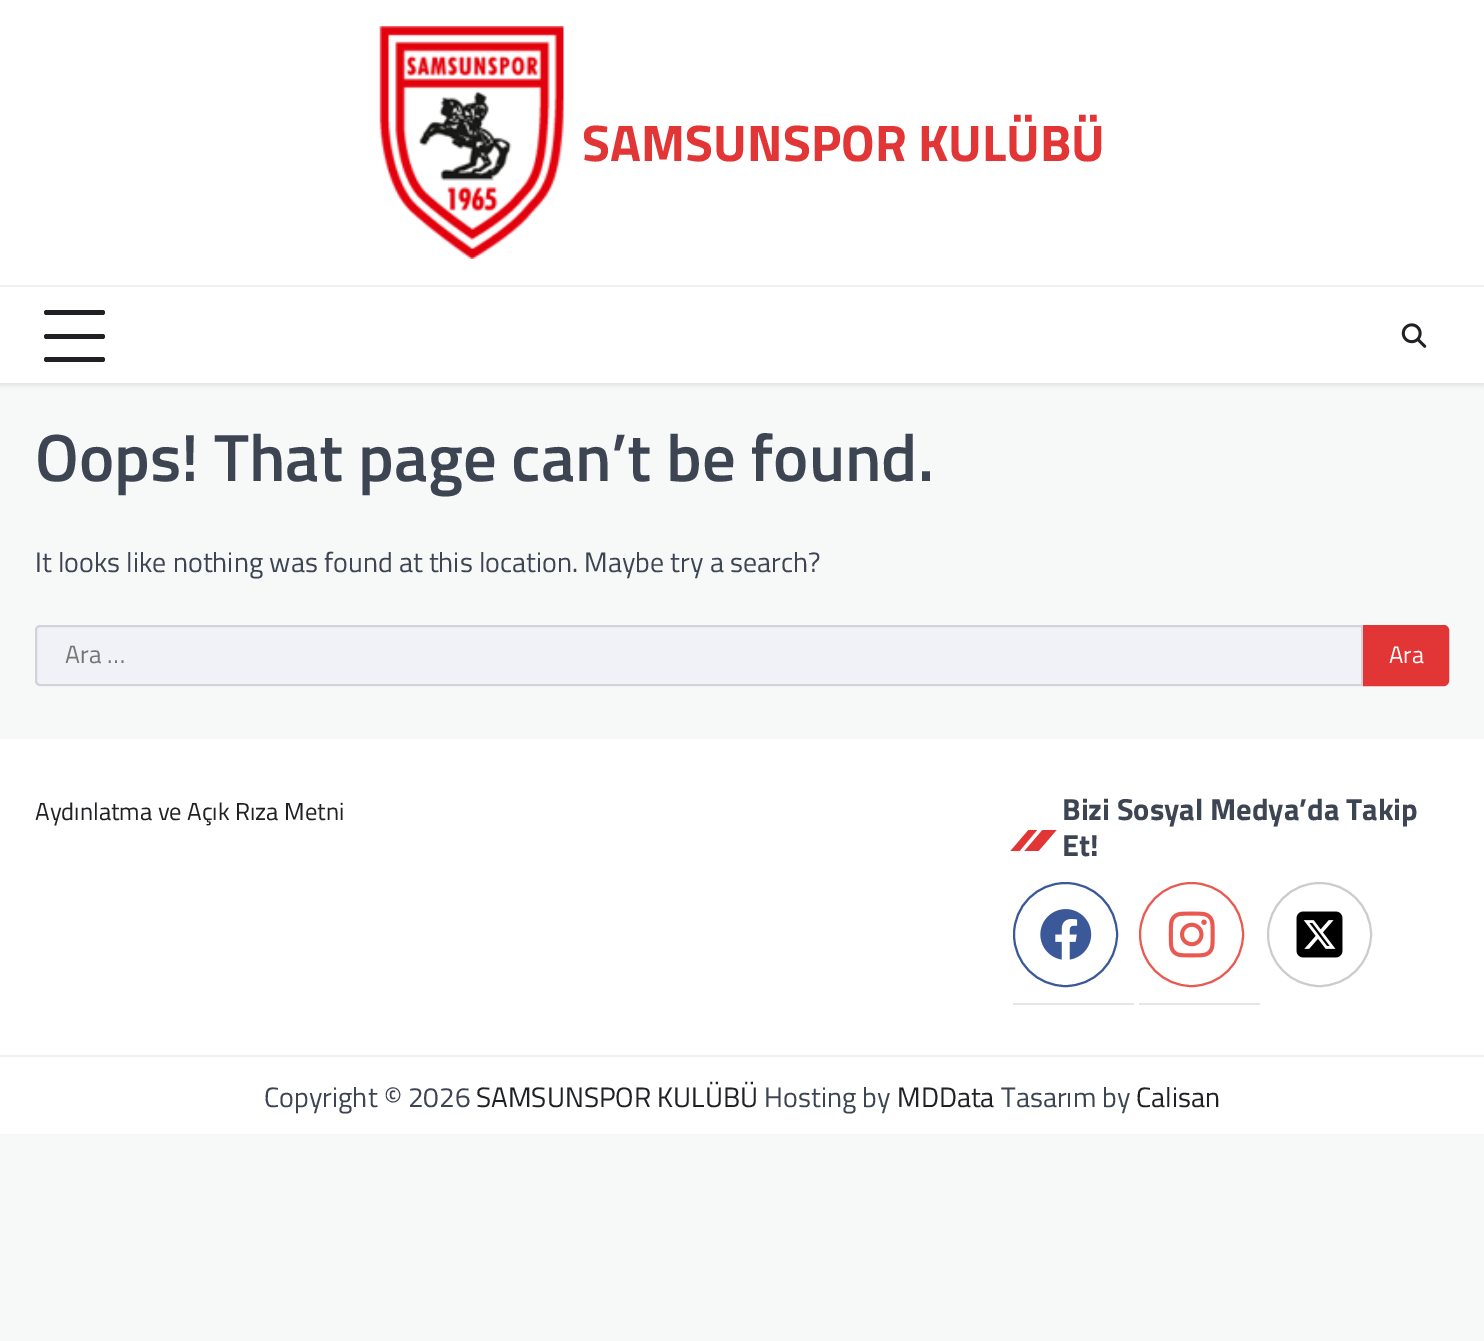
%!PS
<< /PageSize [1484 1341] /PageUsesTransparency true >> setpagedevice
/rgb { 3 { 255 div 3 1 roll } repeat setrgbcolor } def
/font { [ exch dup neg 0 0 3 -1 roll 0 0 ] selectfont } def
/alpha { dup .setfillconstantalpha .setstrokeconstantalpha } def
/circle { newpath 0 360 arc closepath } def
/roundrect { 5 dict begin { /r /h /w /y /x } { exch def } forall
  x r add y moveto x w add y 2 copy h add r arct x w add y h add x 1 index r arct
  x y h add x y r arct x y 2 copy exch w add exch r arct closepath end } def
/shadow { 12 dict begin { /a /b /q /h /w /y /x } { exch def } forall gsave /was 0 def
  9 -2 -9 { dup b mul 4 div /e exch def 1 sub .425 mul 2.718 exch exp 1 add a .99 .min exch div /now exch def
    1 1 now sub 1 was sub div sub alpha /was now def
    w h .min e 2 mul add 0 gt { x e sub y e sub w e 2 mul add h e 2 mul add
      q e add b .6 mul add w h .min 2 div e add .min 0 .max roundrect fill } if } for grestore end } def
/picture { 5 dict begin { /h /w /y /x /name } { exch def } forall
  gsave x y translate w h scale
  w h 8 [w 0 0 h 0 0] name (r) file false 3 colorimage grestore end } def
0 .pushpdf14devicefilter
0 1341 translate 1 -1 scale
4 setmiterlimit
247 249 248 rgb
0 0 1484 1341 rectfill
0 0 0 rgb
0 2 1484 383 0 2.5 0.1 shadow
255 255 255 rgb
0 0 1484 285 rectfill
(img/1.rgb) 379 26 185 233 picture
0 287 1484 96 rectfill
241 241 241 rgb
0 285 1484 2 rectfill
32 33 36 rgb
44 310 61 5 2.5 roundrect fill
44 334 61 5 2.5 roundrect fill
44 357 61 5 2.5 roundrect fill
(img/2.rgb) 1401 323 26 25 picture
240 242 247 rgb
40 625 moveto 1363 625 lineto 1363 686 lineto 40 686 lineto 37 686 35 684 35 681 curveto 35 630 lineto 35 627 37 625 40 625 curveto closepath fill
0.15 alpha
32 33 36 rgb
2 setlinewidth
40 626 moveto 1362 626 lineto 1362 685 lineto 40 685 lineto 38 685 36 683 36 681 curveto 36 630 lineto 36 628 38 626 40 626 curveto closepath stroke
1 alpha
226 54 54 rgb
1364 626 moveto 1444 626 lineto 1446 626 1448 628 1448 630 curveto 1448 681 lineto 1448 683 1446 685 1444 685 curveto 1364 685 lineto closepath gsave fill grestore
stroke
255 255 255 rgb
0 739 1484 395 rectfill
226 54 54 rgb
1028.5 830 moveto 1037 830 lineto 1019.5 851 lineto 1010.5 851 lineto closepath fill
1042.5 830 moveto 1056.5 830 lineto 1038.5 851 lineto 1024.5 851 lineto closepath fill
230 230 230 rgb
1013 1003 121 2 rectfill
59 89 152 rgb
1065.5 934.5 51.5 circle stroke
(img/3.rgb) 1040 909 52 51 picture
230 230 230 rgb
1139 1003 121 2 rectfill
233 89 80 rgb
1191.5 934.5 51.5 circle stroke
(img/4.rgb) 1168 911 47 47 picture
204 204 204 rgb
1319.5 934.5 51.5 circle stroke
(img/5.rgb) 1296 911 47 47 picture
241 241 241 rgb
0 1055 1484 2 rectfill
/TitilliumWeb-Bold 51.5 font
226 54 54 rgb
582 161 moveto (SAMSUNSPOR KULÜBÜ) show
/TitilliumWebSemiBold-SemiBold 66.8 font
61 68 82 rgb
35 481 moveto (Oops! That page can’t be found.) show
/TitilliumWeb-Regular 28 font
35 572 moveto (It looks like nothing was found at this location. Maybe try a search?) show
/TitilliumWeb-Regular 25 font
117 117 117 rgb
65 663 moveto (Ara …) show
/TitilliumWeb-Regular 24 font
255 255 255 rgb
1389 663 moveto (Ara) show
/TitilliumWeb-Regular 24.5 font
32 33 36 rgb
35 820 moveto (Aydınlatma ve Açık Rıza Metni) show
/TitilliumWeb-Bold 30.5 font
61 68 82 rgb
1062 820 moveto (Bizi Sosyal Medya’da Takip) show
1062 856 moveto (Et!) show
/TitilliumWeb-Regular 28 font
264 1107 moveto (Copyright © 2026) show
32 33 36 rgb
476 1107 moveto (SAMSUNSPOR KULÜBÜ) show
61 68 82 rgb
764 1107 moveto (Hosting by) show
32 33 36 rgb
897 1107 moveto (MDData) show
61 68 82 rgb
1001 1107 moveto (Tasarım by) show
32 33 36 rgb
1136 1107 moveto (Calisan) show
.poppdf14devicefilter showpage
